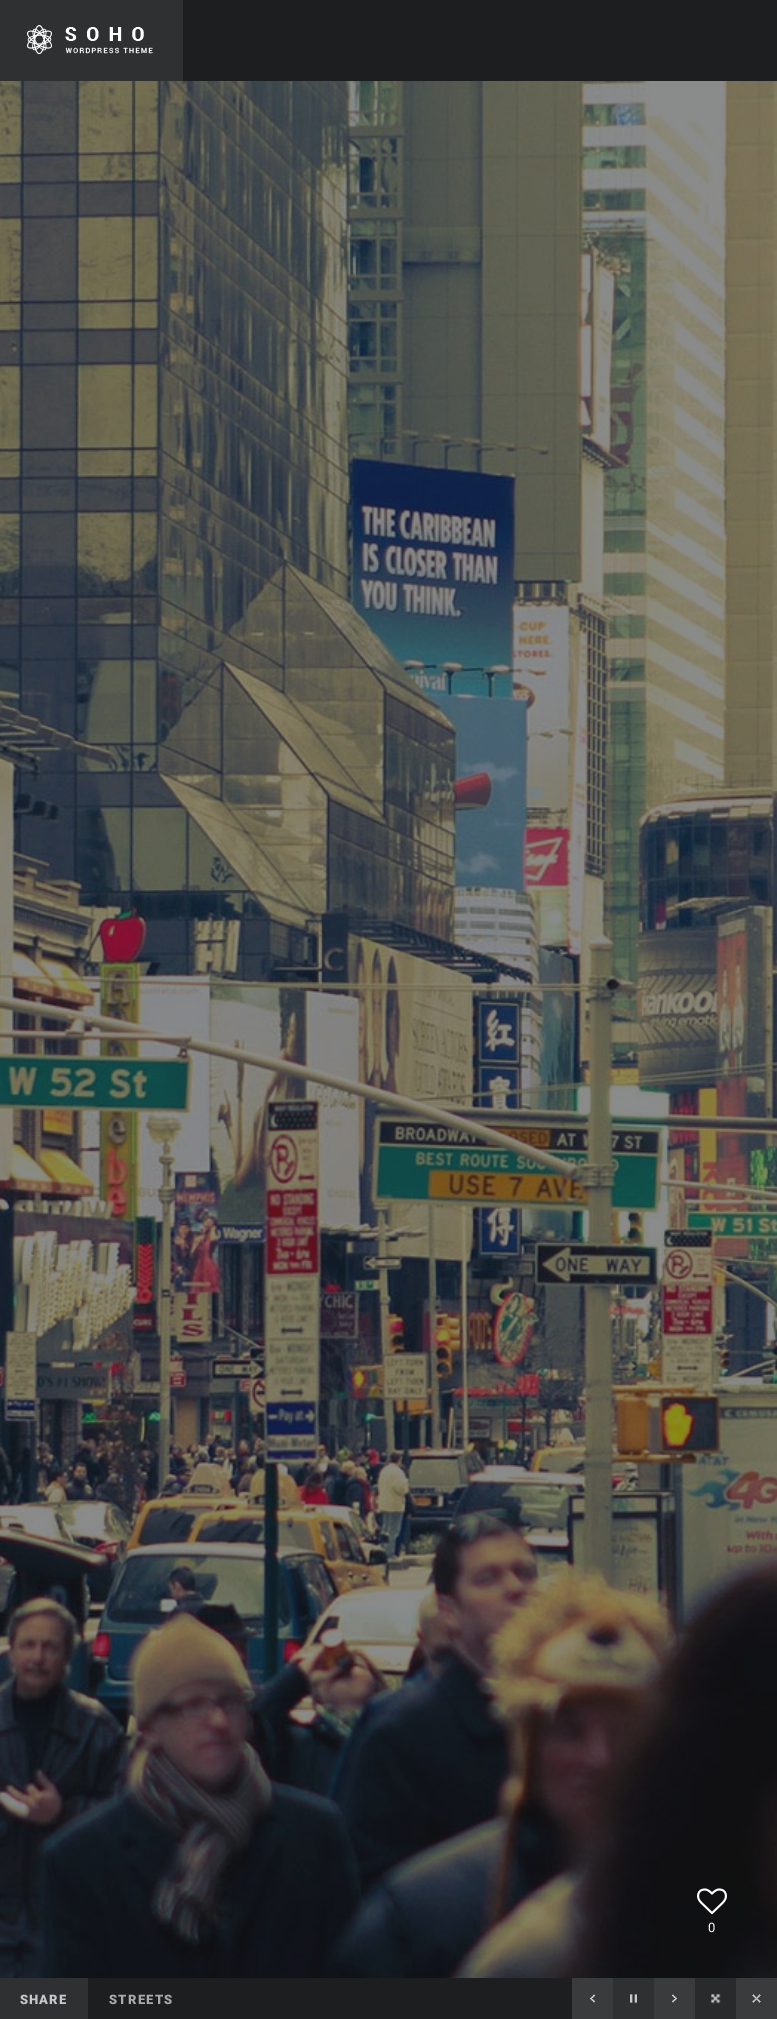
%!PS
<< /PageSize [777 2019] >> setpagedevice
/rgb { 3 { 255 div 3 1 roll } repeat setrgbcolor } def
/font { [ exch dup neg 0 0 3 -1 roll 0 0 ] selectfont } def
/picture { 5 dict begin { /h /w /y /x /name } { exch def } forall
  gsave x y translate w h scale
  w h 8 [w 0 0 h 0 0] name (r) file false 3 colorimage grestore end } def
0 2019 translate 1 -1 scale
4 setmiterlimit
29 30 31 rgb
0 0 777 2019 rectfill
46 48 50 rgb
0 0 183 81 rectfill
(img/1.rgb) 27 25 126 30 picture
(img/2.rgb) 0 81 777 1897 picture
(img/3.rgb) 697 1888 30 27 picture
0 1978 88 41 rectfill
57 59 61 rgb
572 1978 41 41 rectfill
(img/4.rgb) 590 1994 5 9 picture
46 48 50 rgb
613 1978 41 41 rectfill
(img/5.rgb) 630 1994 7 9 picture
57 59 61 rgb
654 1978 41 41 rectfill
(img/6.rgb) 672 1994 5 9 picture
736 1978 41 41 rectfill
(img/7.rgb) 752 1994 9 9 picture
40 42 44 rgb
695 1978 41 41 rectfill
(img/8.rgb) 711 1994 10 10 picture
/Roboto-Regular 13 font
255 255 255 rgb
708 1932 moveto (0) show
/Roboto-Black 13 font
199 202 204 rgb
20 2004 moveto 1 0 (SHARE) ashow
168 171 173 rgb
109 2004 moveto 1.25 0 (STREETS) ashow
showpage
